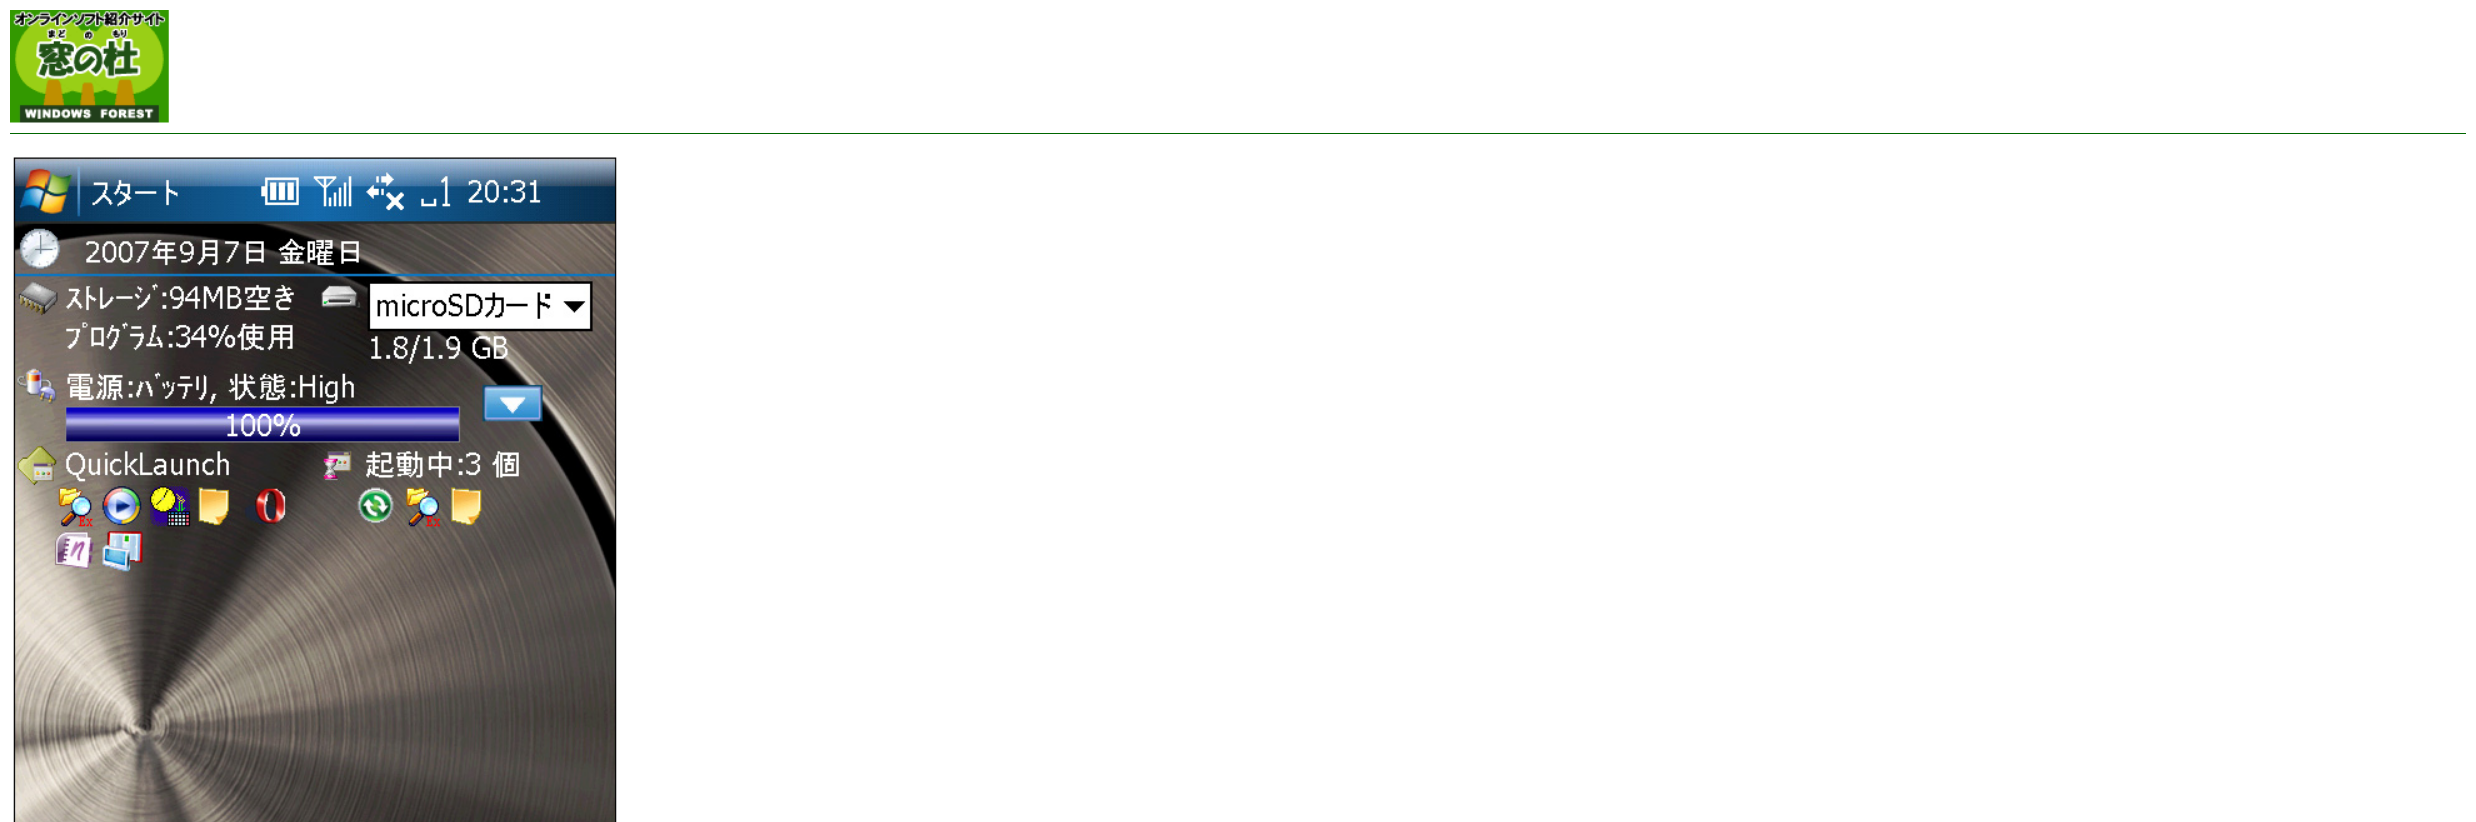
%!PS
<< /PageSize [2476 822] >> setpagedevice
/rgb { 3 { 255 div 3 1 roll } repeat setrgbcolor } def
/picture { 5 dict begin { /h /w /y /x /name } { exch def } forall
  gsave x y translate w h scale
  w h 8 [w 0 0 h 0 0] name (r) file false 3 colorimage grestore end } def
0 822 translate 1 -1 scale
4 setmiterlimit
255 255 255 rgb
0 0 2476 822 rectfill
(img/1.rgb) 10 10 159 113 picture
0 102 0 rgb
10 133 2456 1 rectfill
(img/2.rgb) 13 157 604 665 picture
showpage
